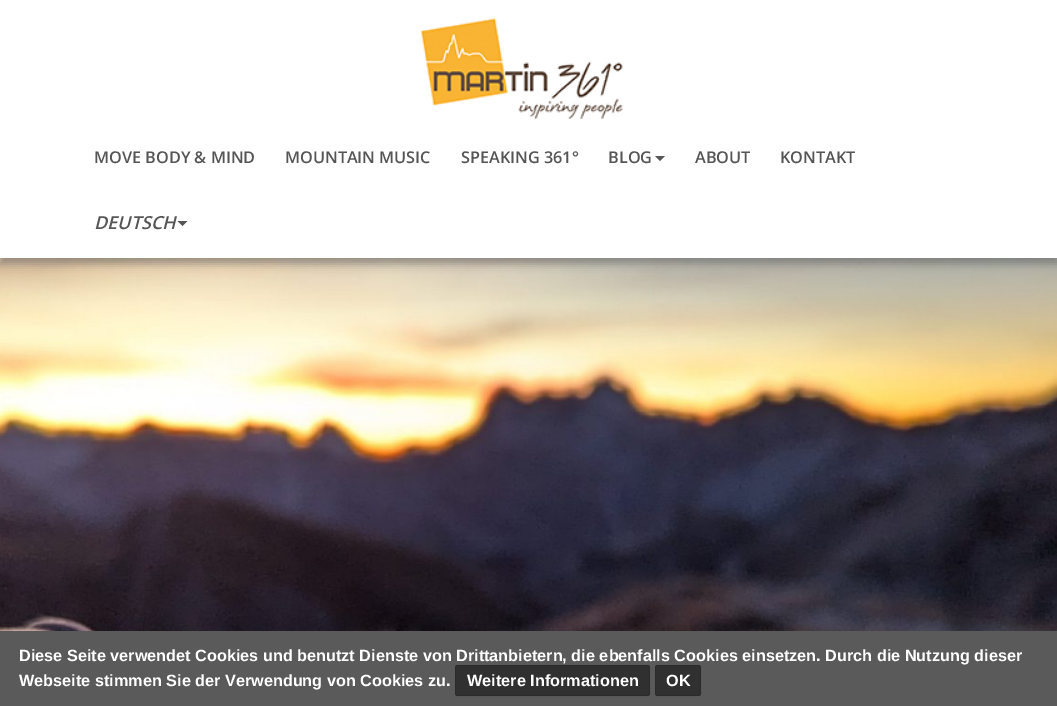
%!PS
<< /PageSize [1057 706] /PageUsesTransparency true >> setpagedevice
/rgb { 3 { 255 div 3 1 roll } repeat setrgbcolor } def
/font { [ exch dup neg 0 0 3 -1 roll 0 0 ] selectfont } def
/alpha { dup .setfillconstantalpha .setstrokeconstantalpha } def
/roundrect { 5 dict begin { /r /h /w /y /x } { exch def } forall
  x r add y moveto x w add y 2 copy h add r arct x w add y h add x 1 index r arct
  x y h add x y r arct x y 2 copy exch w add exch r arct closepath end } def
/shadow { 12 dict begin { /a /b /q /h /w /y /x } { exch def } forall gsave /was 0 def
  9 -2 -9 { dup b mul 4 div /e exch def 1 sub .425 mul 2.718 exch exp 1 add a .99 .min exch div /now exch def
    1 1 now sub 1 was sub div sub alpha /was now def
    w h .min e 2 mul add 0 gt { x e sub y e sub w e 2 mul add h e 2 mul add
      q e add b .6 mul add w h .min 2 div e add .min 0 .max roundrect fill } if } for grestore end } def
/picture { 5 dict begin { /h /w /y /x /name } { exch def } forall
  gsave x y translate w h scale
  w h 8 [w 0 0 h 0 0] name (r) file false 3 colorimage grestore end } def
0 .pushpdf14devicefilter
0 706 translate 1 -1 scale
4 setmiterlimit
255 255 255 rgb
0 0 1057 706 rectfill
(img/2.rgb) 0 258 1057 373 picture
85 85 85 rgb
0 6 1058 258 0 4 0.5 shadow
255 255 255 rgb
0 0 1057 258 rectfill
(img/1.rgb) 421 18 202 101 picture
85 85 85 rgb
655 156 moveto 665 156 lineto 660 161 lineto closepath fill
177.5 221 moveto 187.5 221 lineto 182.5 226 lineto closepath fill
90 90 90 rgb
0 631 1057 75 rectfill
48 48 48 rgb
455 665 195 31 2.5 roundrect fill
0.1 alpha
0 0 0 rgb
455.5 665.5 194 30 2 roundrect stroke
1 alpha
48 48 48 rgb
655 665 46 31 2.5 roundrect fill
0.1 alpha
0 0 0 rgb
655.5 665.5 45 30 2 roundrect stroke
/OpenSans-SemiBold 16.25 font
1 alpha
85 85 85 rgb
[
  [(MOVE BODY & MIND) 94 163]
  [(MOUNTAIN MUSIC) 285 163]
  [(SPEAKING 361°) 461 163]
  [(BLOG) 608 163]
  [(ABOUT) 695 163]
  [(KONTAKT) 780 163]
] { aload pop moveto show } forall
/OpenSans-SemiBoldItalic 18 font
94 229 moveto (DEUTSCH) show
/LiberationSans-Bold 16.25 font
255 255 255 rgb
[
  [(Diese Seite verwendet Cookies und benutzt Dienste von Drittanbietern, die ebenfalls Cookies einsetzen. Durch die Nutzung dieser) 19 661]
  [(Webseite stimmen Sie der Verwendung von Cookies zu.) 19 686]
  [(Weitere Informationen) 467 686]
  [(OK) 666 686]
] { aload pop moveto show } forall
.poppdf14devicefilter showpage
